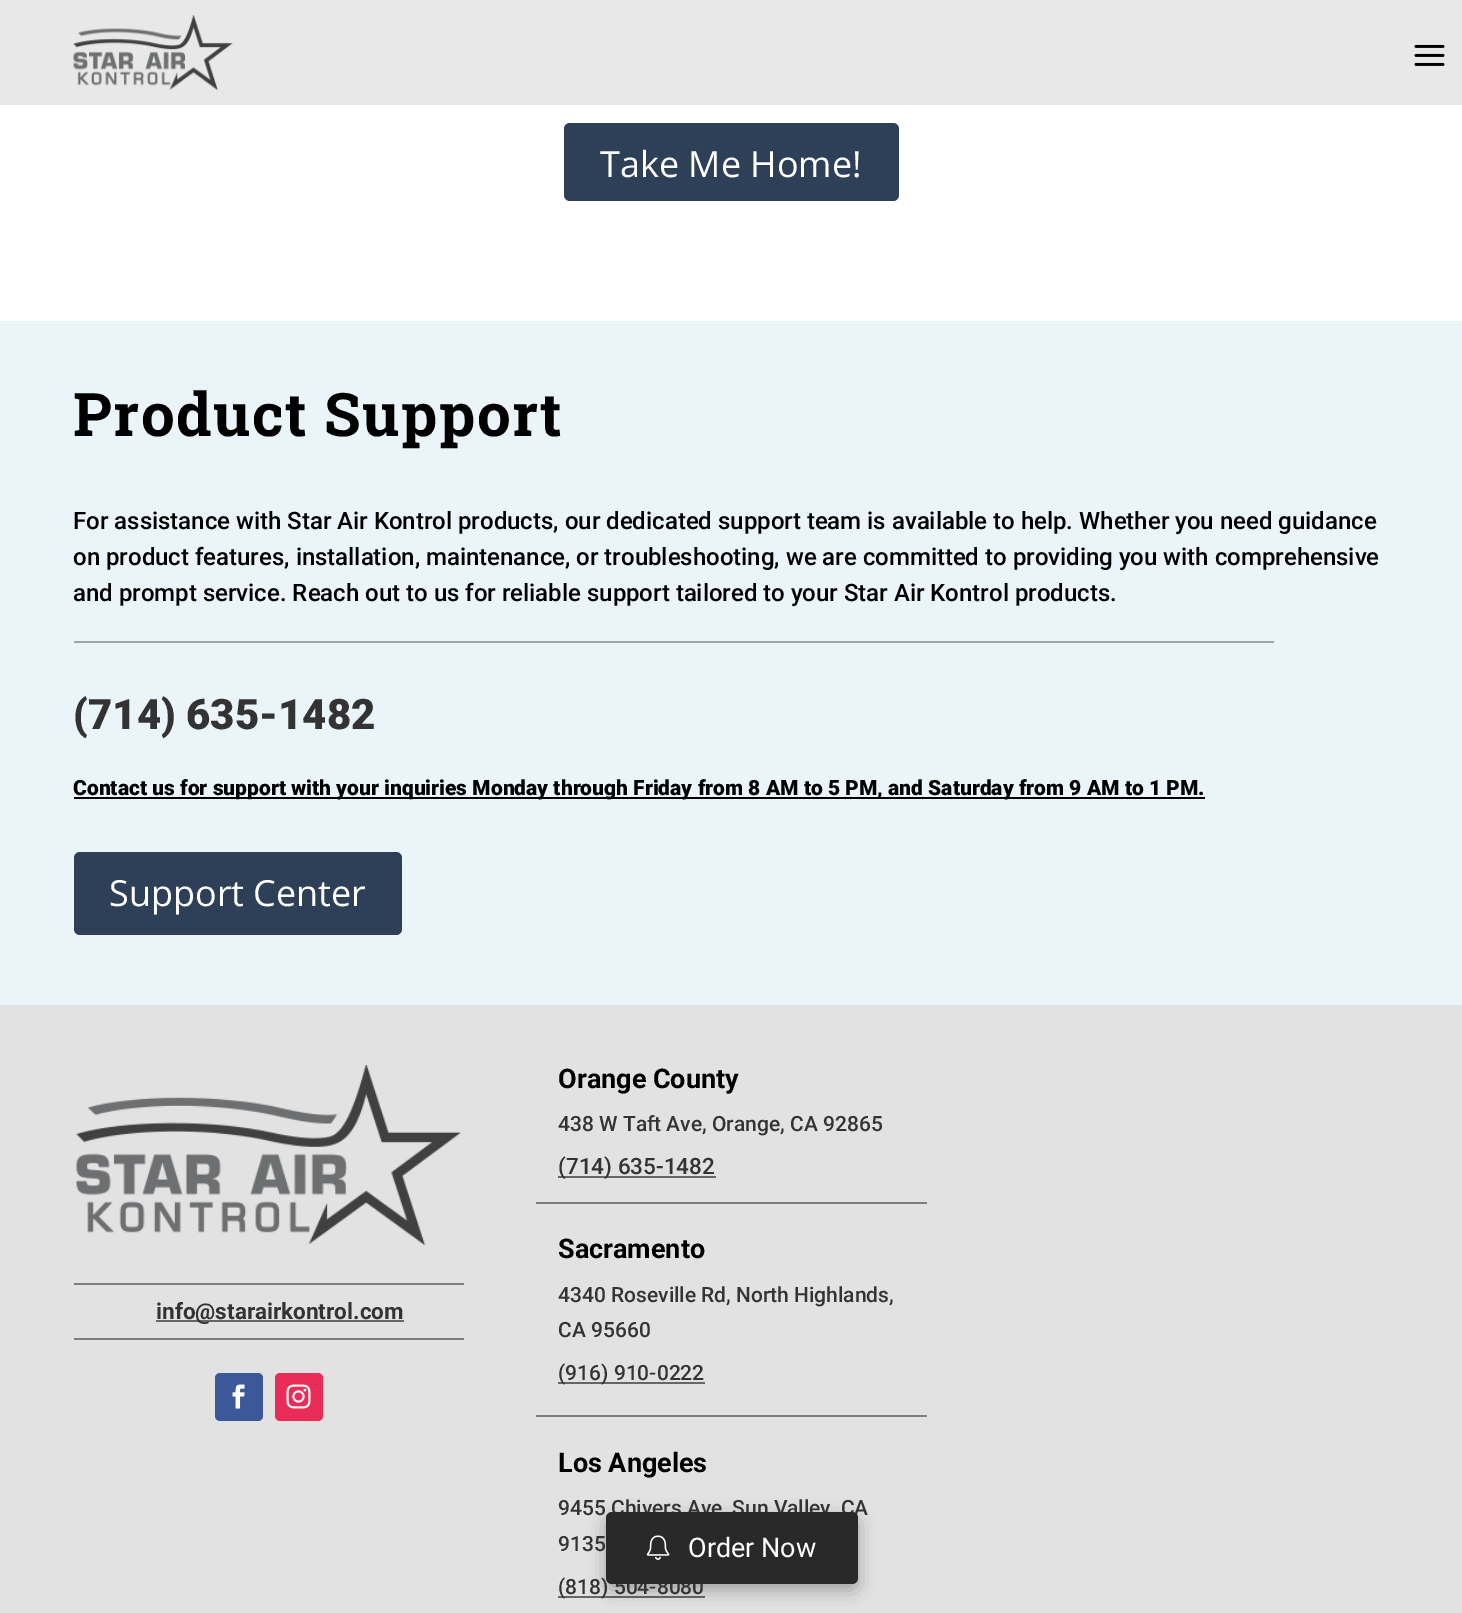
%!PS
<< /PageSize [1462 1613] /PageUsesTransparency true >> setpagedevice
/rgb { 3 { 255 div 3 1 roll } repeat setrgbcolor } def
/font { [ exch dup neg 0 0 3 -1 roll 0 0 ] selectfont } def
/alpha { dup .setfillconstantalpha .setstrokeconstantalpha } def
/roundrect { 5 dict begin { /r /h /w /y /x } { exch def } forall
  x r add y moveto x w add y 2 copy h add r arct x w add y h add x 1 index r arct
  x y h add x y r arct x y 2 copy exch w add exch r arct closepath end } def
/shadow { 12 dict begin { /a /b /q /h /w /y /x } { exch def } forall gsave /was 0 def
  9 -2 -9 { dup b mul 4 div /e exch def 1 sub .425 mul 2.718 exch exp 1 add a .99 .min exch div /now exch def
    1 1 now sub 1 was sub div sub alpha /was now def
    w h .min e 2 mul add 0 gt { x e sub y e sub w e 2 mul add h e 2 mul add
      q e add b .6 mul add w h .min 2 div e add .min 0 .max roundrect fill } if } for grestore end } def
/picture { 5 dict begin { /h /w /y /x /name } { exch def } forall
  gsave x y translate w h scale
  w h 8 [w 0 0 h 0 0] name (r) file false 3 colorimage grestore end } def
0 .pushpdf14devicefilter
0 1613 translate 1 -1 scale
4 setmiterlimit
255 255 255 rgb
0 0 1462 1613 rectfill
232 232 232 rgb
0 0 1462 105 rectfill
(img/1.rgb) 73 15 160 75 picture
(img/2.rgb) 1414 44 31 22 picture
46 64 87 rgb
564 123 335 78 6 roundrect fill
[
  [0 321 1462 684 234 244 249]
  [74 641 1200 2 159 164 165]
  [74 797 1131 2 0 0 0]
] { aload pop rgb rectfill } forall
46 64 87 rgb
74 852 328 83 6 roundrect fill
226 226 226 rgb
0 1005 1462 608 rectfill
(img/3.rgb) 76 1065 385 180 picture
[
  [74 1283 390 2 127 127 127]
  [156 1320 248 2 102 102 102]
  [74 1338 390 2 127 127 127]
] { aload pop rgb rectfill } forall
59 89 152 rgb
215 1373 48 48 5 roundrect fill
(img/4.rgb) 232 1384 13 25 picture
234 44 89 rgb
275 1373 48 48 5 roundrect fill
(img/5.rgb) 286 1384 25 25 picture
[
  [558 1176 158 2 102 102 102]
  [536 1202 391 2 127 127 127]
  [558 1382 147 2 102 102 102]
  [536 1415 391 2 127 127 127]
  [558 1596 147 2 102 102 102]
] { aload pop rgb rectfill } forall
0 0 0 rgb
606 1518 252 72 6 9 0.3 shadow
/OpenSans-Regular 36 font
255 255 255 rgb
600 177 moveto (Take Me Home!) show
/RobotoSlab-Bold 60 font
0 0 0 rgb
73 436 moveto 1.5 0 (Product Support) ashow
/Roboto-Medium 24 font
[
  [(For assistance with Star Air Kontrol products, our dedicated support team is available to help. Whether you need guidance) 73 529]
  [(on product features, installation, maintenance, or troubleshooting, we are committed to providing you with comprehensive) 73 565]
  [(and prompt service. Reach out to us for reliable support tailored to your Star Air Kontrol products.) 73 601]
] { aload pop moveto show } forall
/Roboto-Black 42 font
51 51 51 rgb
73 729 moveto (\(714\) 635-1482) show
/Roboto-Black 21 font
0 0 0 rgb
73 795 moveto (Contact us for support with your inquiries Monday through Friday from 8 AM to 5 PM, and Saturday from 9 AM to 1 PM.) show
/OpenSans-Regular 36 font
255 255 255 rgb
109 906 moveto (Support Center) show
/Roboto-Bold 22.5 font
51 51 51 rgb
156 1319 moveto (info@starairkontrol.com) show
/Roboto-Bold 27 font
0 0 0 rgb
558 1088 moveto (Orange County) show
/Roboto-Medium 21 font
51 51 51 rgb
558 1131 moveto (438 W Taft Ave, Orange, CA 92865) show
/Roboto-Medium 22.5 font
558 1174 moveto (\(714\) 635-1482) show
/Roboto-Bold 27 font
0 0 0 rgb
558 1258 moveto (Sacramento) show
/Roboto-Medium 21 font
51 51 51 rgb
[
  [(4340 Roseville Rd, North Highlands,) 558 1302]
  [(CA 95660) 558 1337]
  [(\(916\) 910-0222) 558 1380]
] { aload pop moveto show } forall
/Roboto-Bold 27 font
0 0 0 rgb
558 1472 moveto (Los Angeles) show
/Roboto-Medium 21 font
51 51 51 rgb
[
  [(9455 Chivers Ave, Sun Valley, CA) 558 1515]
  [(9135) 558 1551]
  [(\(818\) 504-8080) 558 1594]
] { aload pop moveto show } forall
41 41 41 rgb
606 1512 252 72 6 roundrect fill
(img/6.rgb) 646 1535 24 25 picture
/Roboto-Regular 27 font
255 255 255 rgb
688 1557 moveto (Order Now) show
.poppdf14devicefilter showpage
